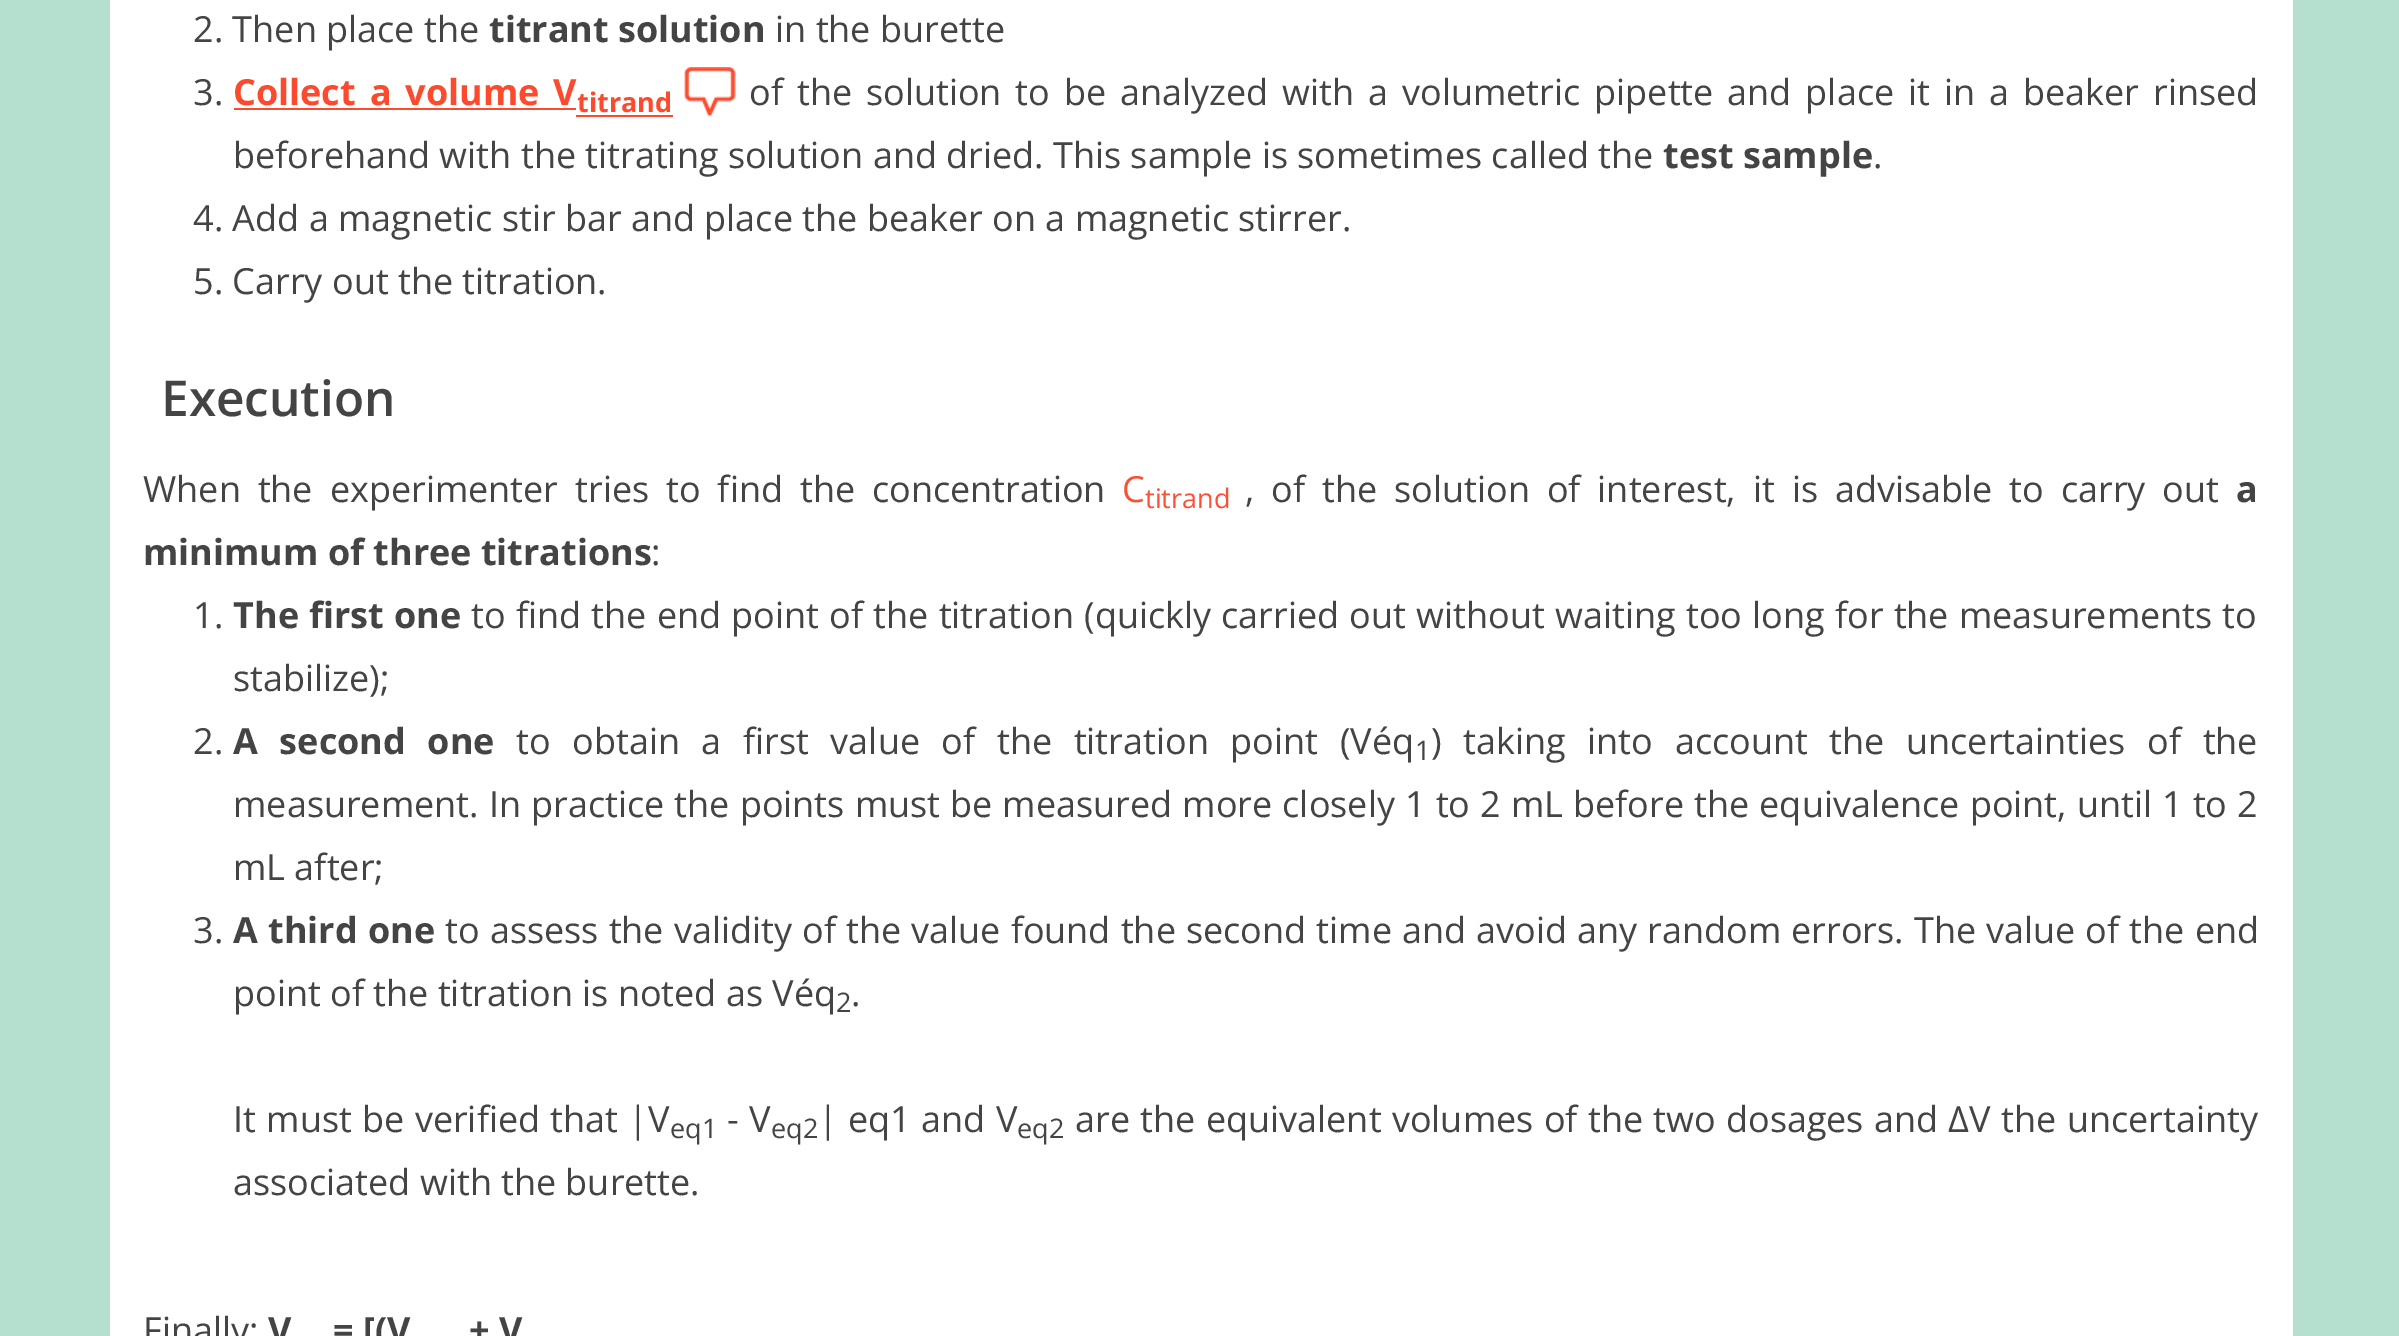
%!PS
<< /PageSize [2399 1336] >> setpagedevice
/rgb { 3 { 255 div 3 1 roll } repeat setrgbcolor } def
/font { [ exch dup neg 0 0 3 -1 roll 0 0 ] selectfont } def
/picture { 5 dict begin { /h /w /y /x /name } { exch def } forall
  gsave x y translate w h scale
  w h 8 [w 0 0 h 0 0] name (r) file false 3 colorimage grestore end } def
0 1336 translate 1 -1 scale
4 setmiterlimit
181 223 207 rgb
0 0 2399 1336 rectfill
[
  [110 0 2183 1336 255 255 255]
  [234 108 342 2 251 74 45]
  [576 115 97 2 251 74 45]
] { aload pop rgb rectfill } forall
(img/1.rgb) 684 67 52 50 picture
/OpenSans-Regular 36 font
68 68 68 rgb
193 42 moveto (2. Then place the) show
/OpenSans-Bold 36 font
489 42 moveto (titrant solution) show
/OpenSans-Regular 36 font
775 42 moveto (in the burette) show
193 105 moveto (3.) show
/OpenSans-Bold 36 font
251 74 45 rgb
233 105 moveto 4.6 0 32 (Collect a volume V) widthshow
/OpenSans-Bold 27 font
577 112 moveto (titrand) show
/OpenSans-Regular 36 font
68 68 68 rgb
749 105 moveto 4.6 0 32 (of the solution to be analyzed with a volumetric pipette and place it in a beaker rinsed) widthshow
233 168 moveto (beforehand with the titrating solution and dried. This sample is sometimes called the) show
/OpenSans-Bold 36 font
1663 168 moveto (test sample) show
/OpenSans-Regular 36 font
[
  [(.) 1873 168]
  [(4. Add a magnetic stir bar and place the beaker on a magnetic stirrer.) 193 231]
  [(5. Carry out the titration.) 193 294]
] { aload pop moveto show } forall
/OpenSans-SemiBold 49.5 font
161 416 moveto (Execution) show
/OpenSans-Regular 36 font
143 502 moveto 7.6 0 32 (When the experimenter tries to find the concentration) widthshow
251 80 52 rgb
1122 502 moveto (C) show
/OpenSans-Regular 27 font
1145 508 moveto (titrand) show
/OpenSans-Regular 36 font
68 68 68 rgb
1245 502 moveto 7.6 0 32 (, of the solution of interest, it is advisable to carry out) widthshow
/OpenSans-Bold 36 font
2236 502 moveto (a) show
143 565 moveto (minimum of three titrations) show
/OpenSans-Regular 36 font
651 565 moveto (:) show
193 628 moveto (1.) show
/OpenSans-Bold 36 font
233 628 moveto 0.9 0 32 (The first one) widthshow
/OpenSans-Regular 36 font
471 628 moveto 0.9 0 32 (to find the end point of the titration \(quickly carried out without waiting too long for the measurements to) widthshow
233 691 moveto (stabilize\);) show
193 754 moveto (2.) show
/OpenSans-Bold 36 font
233 754 moveto 12.25 0 32 (A second one) widthshow
/OpenSans-Regular 36 font
516 754 moveto 12.25 0 32 (to obtain a first value of the titration point \(Véq) widthshow
/OpenSans-Regular 27 font
1415 760 moveto (1) show
/OpenSans-Regular 36 font
1431 754 moveto 12.25 0 32 (\) taking into account the uncertainties of the) widthshow
233 817 moveto 0.75 0 32 (measurement. In practice the points must be measured more closely 1 to 2 mL before the equivalence point, until 1 to 2) widthshow
233 880 moveto (mL after;) show
193 943 moveto (3.) show
/OpenSans-Bold 36 font
233 943 moveto 1 0 32 (A third one) widthshow
/OpenSans-Regular 36 font
445 943 moveto 0.75 0 32 (to assess the validity of the value found the second time and avoid any random errors. The value of the end) widthshow
233 1006 moveto (point of the titration is noted as Véq) show
/OpenSans-Regular 27 font
836 1012 moveto (2) show
/OpenSans-Regular 36 font
851 1006 moveto (.) show
233 1132 moveto 1 0 32 (It must be verified that |V) widthshow
/OpenSans-Regular 27 font
670 1138 moveto (eq1) show
/OpenSans-Regular 36 font
727 1132 moveto 1 0 32 (- V) widthshow
/OpenSans-Regular 27 font
771 1138 moveto (eq2) show
/OpenSans-Regular 36 font
818 1132 moveto 1 0 32 (| eq1 and V) widthshow
/OpenSans-Regular 27 font
1017 1138 moveto (eq2) show
/OpenSans-Regular 36 font
1075 1132 moveto 1 0 32 (are the equivalent volumes of the two dosages and ∆V the uncertainty) widthshow
233 1195 moveto (associated with the burette.) show
143 1343 moveto (Finally:) show
/OpenSans-Bold 36 font
[
  [(V) 268 1343]
  [(= [\(V) 333 1343]
  [(+ V) 469 1343]
] { aload pop moveto show } forall
showpage
